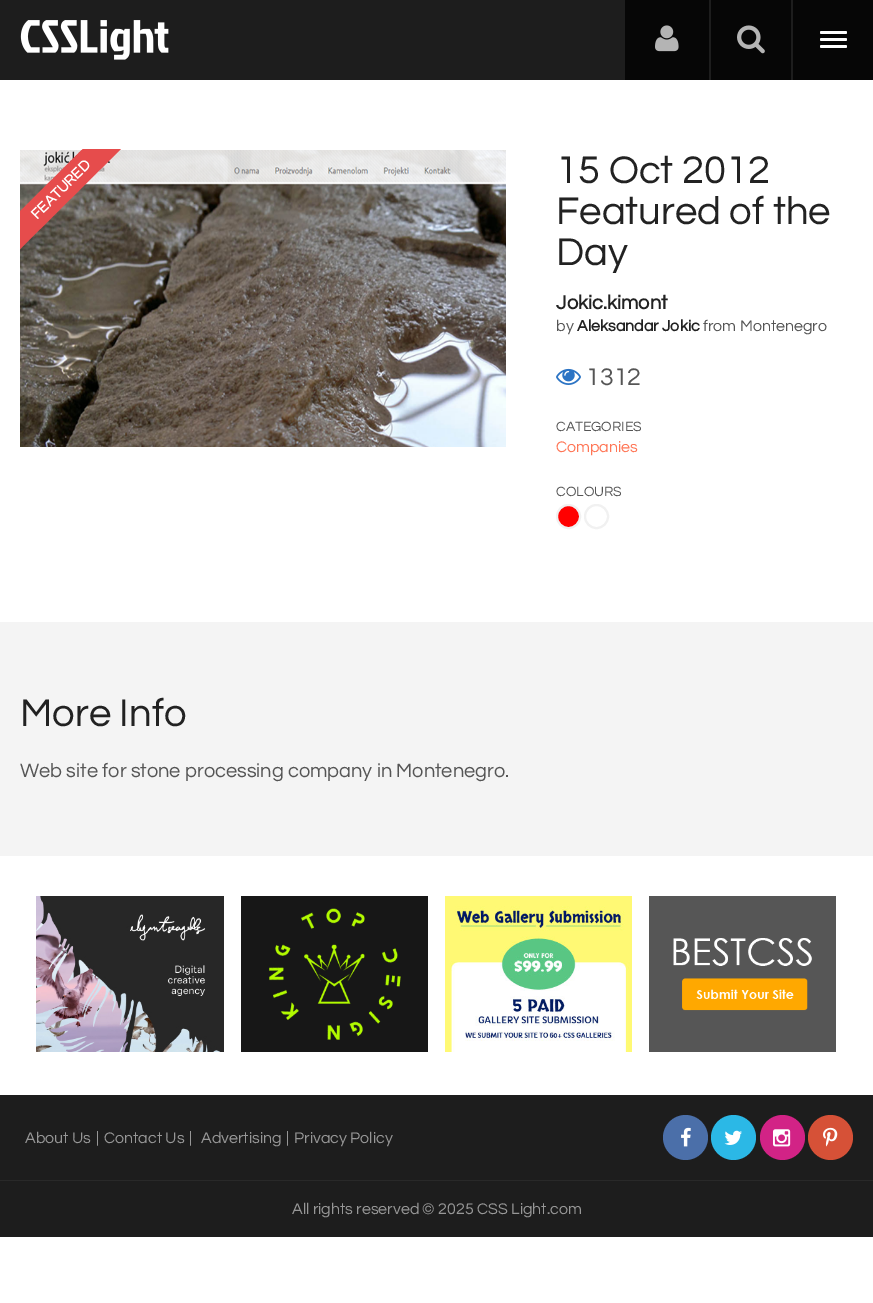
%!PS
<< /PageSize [873 1303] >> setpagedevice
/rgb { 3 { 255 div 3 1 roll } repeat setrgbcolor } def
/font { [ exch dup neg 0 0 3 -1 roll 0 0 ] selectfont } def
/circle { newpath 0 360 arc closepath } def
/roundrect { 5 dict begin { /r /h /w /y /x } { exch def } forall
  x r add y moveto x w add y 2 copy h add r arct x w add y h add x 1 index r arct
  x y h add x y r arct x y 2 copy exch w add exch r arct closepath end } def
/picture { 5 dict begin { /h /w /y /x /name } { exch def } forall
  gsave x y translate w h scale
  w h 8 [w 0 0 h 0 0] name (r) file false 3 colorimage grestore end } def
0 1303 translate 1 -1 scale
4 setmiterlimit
255 255 255 rgb
0 0 873 1303 rectfill
29 29 29 rgb
0 0 793 80 rectfill
(img/1.rgb) 20 20 149 40 picture
6 6 6 rgb
625 0 84 80 rectfill
(img/2.rgb) 655 25 24 27 picture
711 0 80 80 rectfill
(img/3.rgb) 737 25 28 29 picture
793 0 80 80 rectfill
255 255 255 rgb
820 31 27 3 1.5 roundrect fill
820 38 27 3 1.5 roundrect fill
820 45 27 3 1.5 roundrect fill
(img/4.rgb) 20 150 486 297 picture
gsave
20 149 117 108 rectclip
230 76 76 rgb
-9 240 moveto 112 120 lineto 131 139 lineto 10 259 lineto closepath fill
grestore
(img/5.rgb) 556 368 25 17 picture
255 0 0 rgb
568.5 516.5 11.5 circle gsave fill grestore
241 241 241 rgb
2 setlinewidth
stroke
596.5 516.5 11.5 circle stroke
244 244 244 rgb
0 622 873 234 rectfill
(img/6.rgb) 36 896 188 156 picture
(img/7.rgb) 241 896 187 156 picture
(img/8.rgb) 445 896 187 156 picture
(img/9.rgb) 649 896 187 156 picture
29 29 29 rgb
0 1095 873 142 rectfill
75 111 169 rgb
685.5 1137.5 22.5 circle fill
(img/10.rgb) 681 1127 10 20 picture
43 184 230 rgb
733.5 1137.5 22.5 circle fill
(img/11.rgb) 724 1130 18 15 picture
210 35 134 rgb
782.5 1137.5 22.5 circle fill
(img/12.rgb) 773 1129 18 18 picture
214 81 55 rgb
830.5 1137.5 22.5 circle fill
(img/13.rgb) 823 1127 15 20 picture
41 41 41 rgb
0 1180 873 1 rectfill
/Questrial-Bold 15 font
255 255 255 rgb
gsave 37 220 translate -45 rotate 0 0 moveto (FEATURED) show grestore
/Questrial-Regular 40 font
34 34 34 rgb
[
  [(15 Oct 2012) 556 183]
  [(Featured of the) 556 224]
  [(Day) 556 265]
] { aload pop moveto show } forall
/Questrial-Bold 20 font
556 309 moveto (Jokic.kimont) show
/Questrial-Regular 16 font
85 85 85 rgb
556 331 moveto (by) show
/Questrial-Bold 16 font
34 34 34 rgb
577 331 moveto (Aleksandar Jokic) show
/Questrial-Regular 16 font
85 85 85 rgb
703 331 moveto (from Montenegro) show
/Questrial-Regular 25 font
586 385 moveto (1312) show
/Questrial-Regular 14 font
556 431 moveto (CATEGORIES) show
/Questrial-Regular 16 font
255 118 86 rgb
556 452 moveto (Companies) show
/Questrial-Regular 14 font
85 85 85 rgb
556 496 moveto (COLOURS) show
/Questrial-Regular 40 font
34 34 34 rgb
20 726 moveto (More Info) show
/Questrial-Regular 20 font
85 85 85 rgb
20 777 moveto (Web site for stone processing company in Montenegro.) show
/Questrial-Regular 16 font
151 151 151 rgb
[
  [(About Us) 25 1143]
  [(|) 96 1143]
  [(Contact Us) 104 1143]
  [(|) 189 1143]
  [(Advertising) 201 1143]
  [(|) 286 1143]
  [(Privacy Policy) 294 1143]
  [(All rights reserved © 2025 CSS Light.com) 292 1214]
] { aload pop moveto show } forall
showpage
